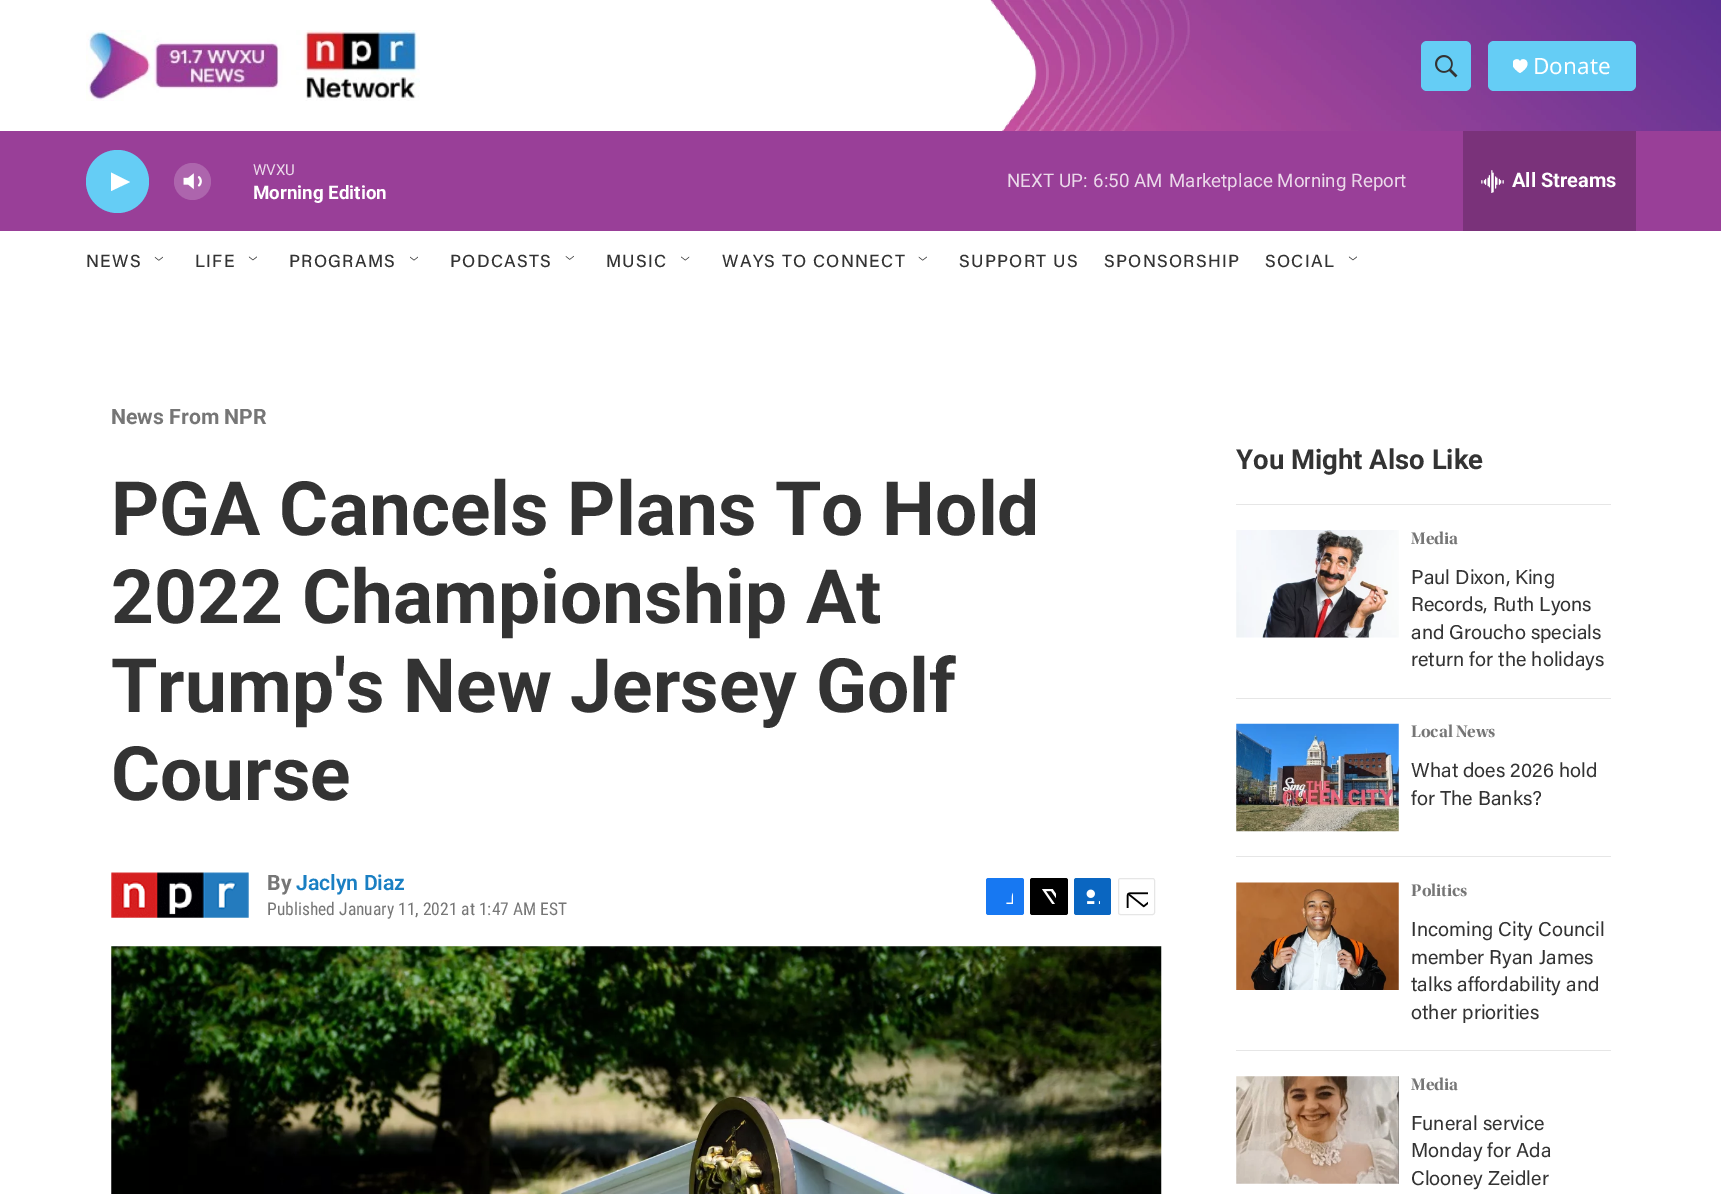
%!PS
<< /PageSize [1721 1194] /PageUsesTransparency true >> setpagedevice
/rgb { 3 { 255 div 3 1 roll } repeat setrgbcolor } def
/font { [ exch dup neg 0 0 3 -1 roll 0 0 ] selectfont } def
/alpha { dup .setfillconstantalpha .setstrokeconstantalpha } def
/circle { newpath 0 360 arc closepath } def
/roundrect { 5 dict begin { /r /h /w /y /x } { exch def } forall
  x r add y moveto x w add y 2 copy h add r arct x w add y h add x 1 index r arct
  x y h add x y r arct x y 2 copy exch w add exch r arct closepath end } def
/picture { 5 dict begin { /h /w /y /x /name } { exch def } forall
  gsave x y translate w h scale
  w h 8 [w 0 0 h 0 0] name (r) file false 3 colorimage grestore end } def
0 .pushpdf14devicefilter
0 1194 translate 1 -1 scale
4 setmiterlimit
255 255 255 rgb
0 0 1721 1194 rectfill
(img/1.rgb) 990 0 731 131 picture
(img/2.rgb) 86 30 334 71 picture
101 205 245 rgb
1421 41 50 50 6 roundrect fill
(img/3.rgb) 1435 55 23 23 picture
1488 41 148 50 6 roundrect fill
gsave
1513 59 15 15 rectclip
255 255 255 rgb
1520 61.5 moveto 1517.5 55 1504.5 63.5 1520 73 curveto 1535.5 63.5 1522.5 55 1520 61.5 curveto closepath fill
grestore
153 63 152 rgb
0 131 1721 100 rectfill
101 205 245 rgb
117.5 181.5 31.5 circle fill
255 255 255 rgb
111 172.5 moveto 130 182 lineto 111 191 lineto closepath fill
(img/4.rgb) 183 173 19 17 picture
0.2 alpha
192.5 181.5 18.5 circle fill
1 alpha
122 50 122 rgb
1463 131 173 100 rectfill
(img/5.rgb) 1481 170 23 23 picture
(img/6.rgb) 154 256 9 5 picture
(img/7.rgb) 248 256 9 5 picture
(img/8.rgb) 410 256 8 5 picture
(img/9.rgb) 565 255 9 5 picture
(img/10.rgb) 681 256 9 5 picture
(img/11.rgb) 918 256 9 5 picture
(img/12.rgb) 1348 256 9 5 picture
(img/13.rgb) 111 872 138 47 picture
23 120 242 rgb
986 878 38 37 2.5 roundrect fill
(img/14.rgb) 1006 892 7 12 picture
0 0 0 rgb
1030 878 38 37 2.5 roundrect fill
(img/15.rgb) 1042 889 14 15 picture
10 102 193 rgb
1074 878 37 37 2.5 roundrect fill
(img/16.rgb) 1086 889 14 15 picture
230 230 230 rgb
1118.5 878.5 36 36 2 roundrect stroke
(img/17.rgb) 1126 892 22 16 picture
(img/18.rgb) 111 946 1051 248 picture
1236 504 375 1 rectfill
1236 698 375 1 rectfill
(img/19.rgb) 1236 530 163 108 picture
1236 856 375 1 rectfill
(img/20.rgb) 1236 723 163 109 picture
1236 1050 375 1 rectfill
(img/21.rgb) 1236 882 163 108 picture
(img/22.rgb) 1236 1076 163 108 picture
/NotoSans-Regular 22.5 font
255 255 255 rgb
1533 74 moveto (Donate) show
/Roboto-Regular 15 font
235 217 234 rgb
253 175 moveto (WVXU) show
/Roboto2-Bold 18.75 font
255 255 255 rgb
253 199 moveto (Morning Edition) show
/Roboto-Regular 18.75 font
235 217 234 rgb
[
  [(NEXT UP:) 1007 187]
  [(6:50 AM) 1093 187]
  [(Marketplace Morning Report) 1169 187]
] { aload pop moveto show } forall
/Roboto2-Bold 20 font
255 255 255 rgb
1512 187 moveto (All Streams) show
/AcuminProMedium-Medium 17.5 font
51 51 51 rgb
86 267 moveto 1.25 0 (NEWS) ashow
195 267 moveto 1.25 0 (LIFE) ashow
289 267 moveto 1.25 0 (PROGRAMS) ashow
450 267 moveto 1.25 0 (PODCASTS) ashow
606 267 moveto 1.25 0 (MUSIC) ashow
722 267 moveto 1.25 0 (WAYS TO CONNECT) ashow
959 267 moveto 1.25 0 (SUPPORT US) ashow
1104 267 moveto 1.25 0 (SPONSORSHIP) ashow
1265 267 moveto 1.25 0 (SOCIAL) ashow
/Roboto-Bold 21.25 font
118 118 118 rgb
111 424 moveto (News From NPR) show
/Roboto-Bold 75 font
51 51 51 rgb
[
  [(PGA Cancels Plans To Hold) 111 535]
  [(2022 Championship At) 111 623]
  [(Trump's New Jersey Golf) 111 712]
  [(Course) 111 800]
] { aload pop moveto show } forall
/Roboto-Bold 21.25 font
118 118 118 rgb
267 890 moveto (By) show
/Roboto-SemiBold 21.25 font
26 127 195 rgb
296 890 moveto (Jaclyn Diaz) show
/RobotoCondensed-Regular 17.5 font
118 118 118 rgb
267 915 moveto (Published January 11, 2021 at 1:47 AM EST) show
/Roboto-Bold 27.5 font
51 51 51 rgb
1236 469 moveto (You Might Also Like) show
/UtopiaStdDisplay-Bold 17.5 font
118 118 118 rgb
1411 544 moveto (Media) show
/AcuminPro-Regular 20 font
51 51 51 rgb
[
  [(Paul Dixon, King) 1411 584]
  [(Records, Ruth Lyons) 1411 611]
  [(and Groucho specials) 1411 639]
  [(return for the holidays) 1411 666]
] { aload pop moveto show } forall
/UtopiaStdDisplay-Bold 17.5 font
118 118 118 rgb
1411 737 moveto (Local News) show
/AcuminPro-Regular 20 font
51 51 51 rgb
1411 777 moveto (What does 2026 hold) show
1411 805 moveto (for The Banks?) show
/UtopiaStdDisplay-Bold 17.5 font
118 118 118 rgb
1411 896 moveto (Politics) show
/AcuminPro-Regular 20 font
51 51 51 rgb
[
  [(Incoming City Council) 1411 936]
  [(member Ryan James) 1411 964]
  [(talks affordability and) 1411 991]
  [(other priorities) 1411 1019]
] { aload pop moveto show } forall
/UtopiaStdDisplay-Bold 17.5 font
118 118 118 rgb
1411 1090 moveto (Media) show
/AcuminPro-Regular 20 font
51 51 51 rgb
[
  [(Funeral service) 1411 1130]
  [(Monday for Ada) 1411 1157]
  [(Clooney Zeidler) 1411 1185]
] { aload pop moveto show } forall
.poppdf14devicefilter showpage
